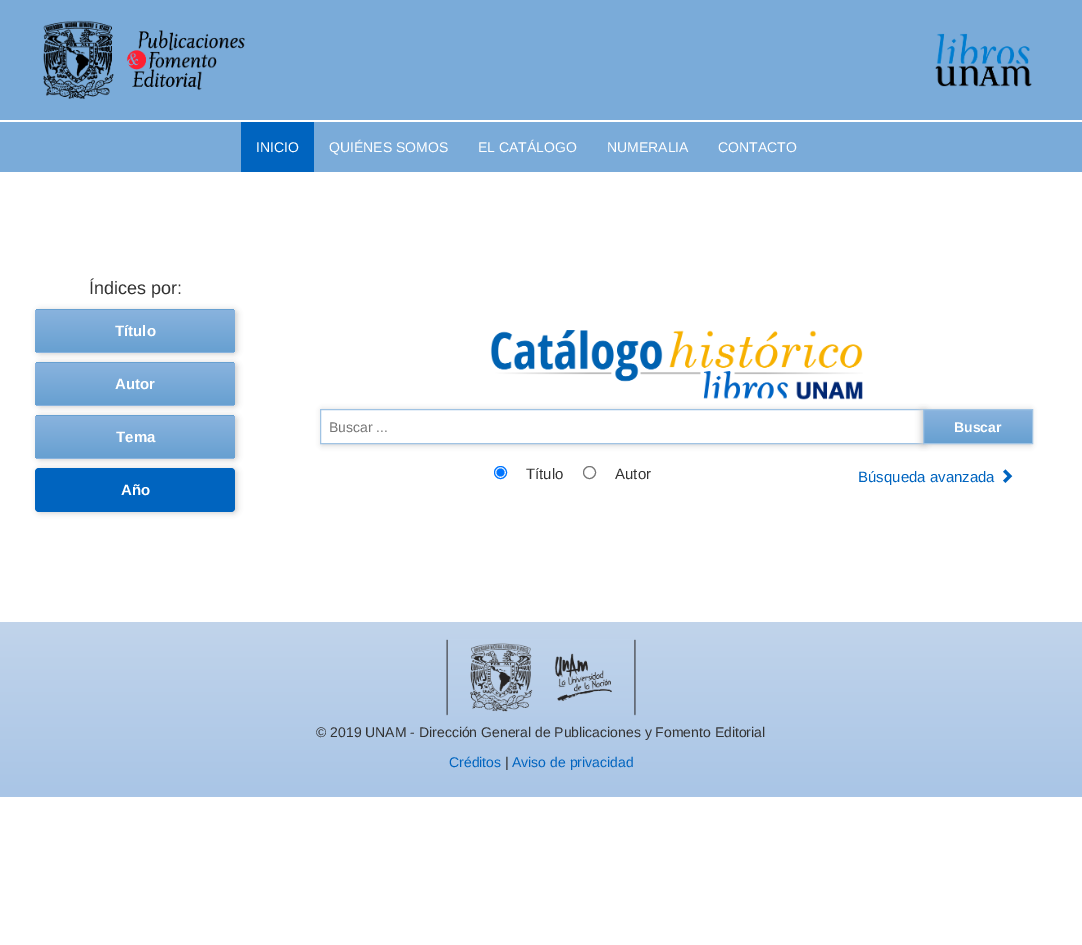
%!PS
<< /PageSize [1082 945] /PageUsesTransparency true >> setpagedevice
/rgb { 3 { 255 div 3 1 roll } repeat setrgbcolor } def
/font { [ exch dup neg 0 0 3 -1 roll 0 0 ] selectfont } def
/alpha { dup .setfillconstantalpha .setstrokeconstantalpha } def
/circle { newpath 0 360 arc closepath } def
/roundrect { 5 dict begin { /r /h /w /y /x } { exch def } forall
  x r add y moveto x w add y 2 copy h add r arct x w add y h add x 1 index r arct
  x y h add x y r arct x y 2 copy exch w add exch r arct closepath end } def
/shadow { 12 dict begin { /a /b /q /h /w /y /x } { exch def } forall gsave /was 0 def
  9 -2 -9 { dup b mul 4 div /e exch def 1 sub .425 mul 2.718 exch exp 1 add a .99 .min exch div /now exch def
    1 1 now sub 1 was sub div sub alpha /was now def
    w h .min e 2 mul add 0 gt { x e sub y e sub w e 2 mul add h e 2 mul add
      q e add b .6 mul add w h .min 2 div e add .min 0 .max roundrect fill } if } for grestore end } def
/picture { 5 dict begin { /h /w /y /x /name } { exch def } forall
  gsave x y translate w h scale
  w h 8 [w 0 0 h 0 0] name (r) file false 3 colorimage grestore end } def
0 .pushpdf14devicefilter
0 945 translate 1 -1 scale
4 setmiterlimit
255 255 255 rgb
0 0 1082 945 rectfill
122 171 217 rgb
0 0 1082 120 rectfill
(img/1.rgb) 43 20 202 79 picture
(img/2.rgb) 935 33 97 54 picture
0 122 1082 50 rectfill
0 100 191 rgb
241 122 73 50 rectfill
204 204 204 rgb
37 310 200 44 4 3 1 shadow
gsave
35 309 200 44 4 roundrect clip newpath
gsave 35 309 moveto 235 309 lineto 235 310 lineto 35 310 lineto closepath clip newpath
<< /ShadingType 2 /ColorSpace /DeviceRGB /Coords [135 268 135 310] /Extend [true true] /Function << /FunctionType 2 /Domain [0 1] /C0 [0.537 0.702 0.871] /C1 [0.404 0.627 0.82] /N 1 >> >> shfill grestore
gsave 35 310 moveto 235 310 lineto 235 352 lineto 35 352 lineto closepath clip newpath
<< /ShadingType 2 /ColorSpace /DeviceRGB /Coords [135 310 135 352] /Extend [true true] /Function << /FunctionType 2 /Domain [0 1] /C0 [0.537 0.702 0.871] /C1 [0.404 0.627 0.82] /N 1 >> >> shfill grestore
gsave 35 352 moveto 235 352 lineto 235 353 lineto 35 353 lineto closepath clip newpath
<< /ShadingType 2 /ColorSpace /DeviceRGB /Coords [135 352 135 394] /Extend [true true] /Function << /FunctionType 2 /Domain [0 1] /C0 [0.537 0.702 0.871] /C1 [0.404 0.627 0.82] /N 1 >> >> shfill grestore
grestore
37 363 200 44 4 3 1 shadow
gsave
35 362 200 44 4 roundrect clip newpath
gsave 35 362 moveto 235 362 lineto 235 363 lineto 35 363 lineto closepath clip newpath
<< /ShadingType 2 /ColorSpace /DeviceRGB /Coords [135 321 135 363] /Extend [true true] /Function << /FunctionType 2 /Domain [0 1] /C0 [0.537 0.702 0.871] /C1 [0.404 0.627 0.82] /N 1 >> >> shfill grestore
gsave 35 363 moveto 235 363 lineto 235 405 lineto 35 405 lineto closepath clip newpath
<< /ShadingType 2 /ColorSpace /DeviceRGB /Coords [135 363 135 405] /Extend [true true] /Function << /FunctionType 2 /Domain [0 1] /C0 [0.537 0.702 0.871] /C1 [0.404 0.627 0.82] /N 1 >> >> shfill grestore
gsave 35 405 moveto 235 405 lineto 235 406 lineto 35 406 lineto closepath clip newpath
<< /ShadingType 2 /ColorSpace /DeviceRGB /Coords [135 405 135 447] /Extend [true true] /Function << /FunctionType 2 /Domain [0 1] /C0 [0.537 0.702 0.871] /C1 [0.404 0.627 0.82] /N 1 >> >> shfill grestore
grestore
37 416 200 44 4 3 1 shadow
gsave
35 415 200 44 4 roundrect clip newpath
gsave 35 415 moveto 235 415 lineto 235 416 lineto 35 416 lineto closepath clip newpath
<< /ShadingType 2 /ColorSpace /DeviceRGB /Coords [135 374 135 416] /Extend [true true] /Function << /FunctionType 2 /Domain [0 1] /C0 [0.537 0.702 0.871] /C1 [0.404 0.627 0.82] /N 1 >> >> shfill grestore
gsave 35 416 moveto 235 416 lineto 235 458 lineto 35 458 lineto closepath clip newpath
<< /ShadingType 2 /ColorSpace /DeviceRGB /Coords [135 416 135 458] /Extend [true true] /Function << /FunctionType 2 /Domain [0 1] /C0 [0.537 0.702 0.871] /C1 [0.404 0.627 0.82] /N 1 >> >> shfill grestore
gsave 35 458 moveto 235 458 lineto 235 459 lineto 35 459 lineto closepath clip newpath
<< /ShadingType 2 /ColorSpace /DeviceRGB /Coords [135 458 135 500] /Extend [true true] /Function << /FunctionType 2 /Domain [0 1] /C0 [0.537 0.702 0.871] /C1 [0.404 0.627 0.82] /N 1 >> >> shfill grestore
grestore
37 469 200 44 4 3 1 shadow
0 100 191 rgb
35 468 200 44 4 roundrect fill
(img/3.rgb) 490 330 373 70 picture
gsave
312 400 moveto 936 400 lineto 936 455 lineto 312 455 lineto closepath 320 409 moveto 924 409 lineto 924 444 lineto 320 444 lineto closepath eoclip newpath
204 204 204 rgb
322 410 604 35 0 3 1 shadow
grestore
160 195 227 rgb
320.5 409.5 603 34 rectstroke
204 204 204 rgb
921 410 110 35 0 3 1 shadow
gsave 924 410 moveto 1032 410 lineto 1032 443 lineto 924 443 lineto closepath clip newpath
<< /ShadingType 2 /ColorSpace /DeviceRGB /Coords [978 410 978 443] /Extend [true true] /Function << /FunctionType 2 /Domain [0 1] /C0 [0.537 0.702 0.871] /C1 [0.404 0.627 0.82] /N 1 >> >> shfill grestore
160 195 227 rgb
923.5 409.5 109 34 rectstroke
0 117 255 rgb
500.5 472.5 6 circle stroke
500.5 472.5 4 circle fill
118 118 118 rgb
589.5 472.5 6 circle stroke
(img/4.rgb) 1003 469 10 14 picture
gsave 0 622 moveto 1082 622 lineto 1082 797 lineto 0 797 lineto closepath clip newpath
<< /ShadingType 2 /ColorSpace /DeviceRGB /Coords [541 622 541 797] /Extend [true true] /Function << /FunctionType 2 /Domain [0 1] /C0 [0.757 0.831 0.922] /C1 [0.663 0.773 0.902] /N 1 >> >> shfill grestore
(img/5.rgb) 446 639 190 77 picture
/LiberationSans-Regular 14 font
255 255 255 rgb
[
  [(INICIO) 256 152]
  [(QUIÉNES SOMOS) 329 152]
  [(EL CATÁLOGO) 478 152]
  [(NUMERALIA) 607 152]
  [(CONTACTO) 718 152]
] { aload pop moveto show } forall
/LiberationSans-Regular 18 font
51 51 51 rgb
89 294 moveto (Índices por:) show
/LiberationSans-Bold 15 font
255 255 255 rgb
[
  [(Título) 115 336]
  [(Autor) 115 389]
  [(Tema) 116 442]
  [(Año) 121 495]
] { aload pop moveto show } forall
/LiberationSans-Regular 14 font
117 117 117 rgb
329 432 moveto (Buscar ...) show
/LiberationSans-Bold 14 font
255 255 255 rgb
954 432 moveto (Buscar) show
/LiberationSans-Regular 15 font
51 51 51 rgb
526 479 moveto (Título) show
615 479 moveto (Autor) show
0 100 191 rgb
858 482 moveto (Búsqueda avanzada) show
/LiberationSans-Regular 14 font
51 51 51 rgb
316 737 moveto (© 2019 UNAM - Dirección General de Publicaciones y Fomento Editorial) show
0 100 191 rgb
449 767 moveto (Créditos) show
51 51 51 rgb
505 767 moveto (|) show
0 100 191 rgb
512 767 moveto (Aviso de privacidad) show
.poppdf14devicefilter showpage
